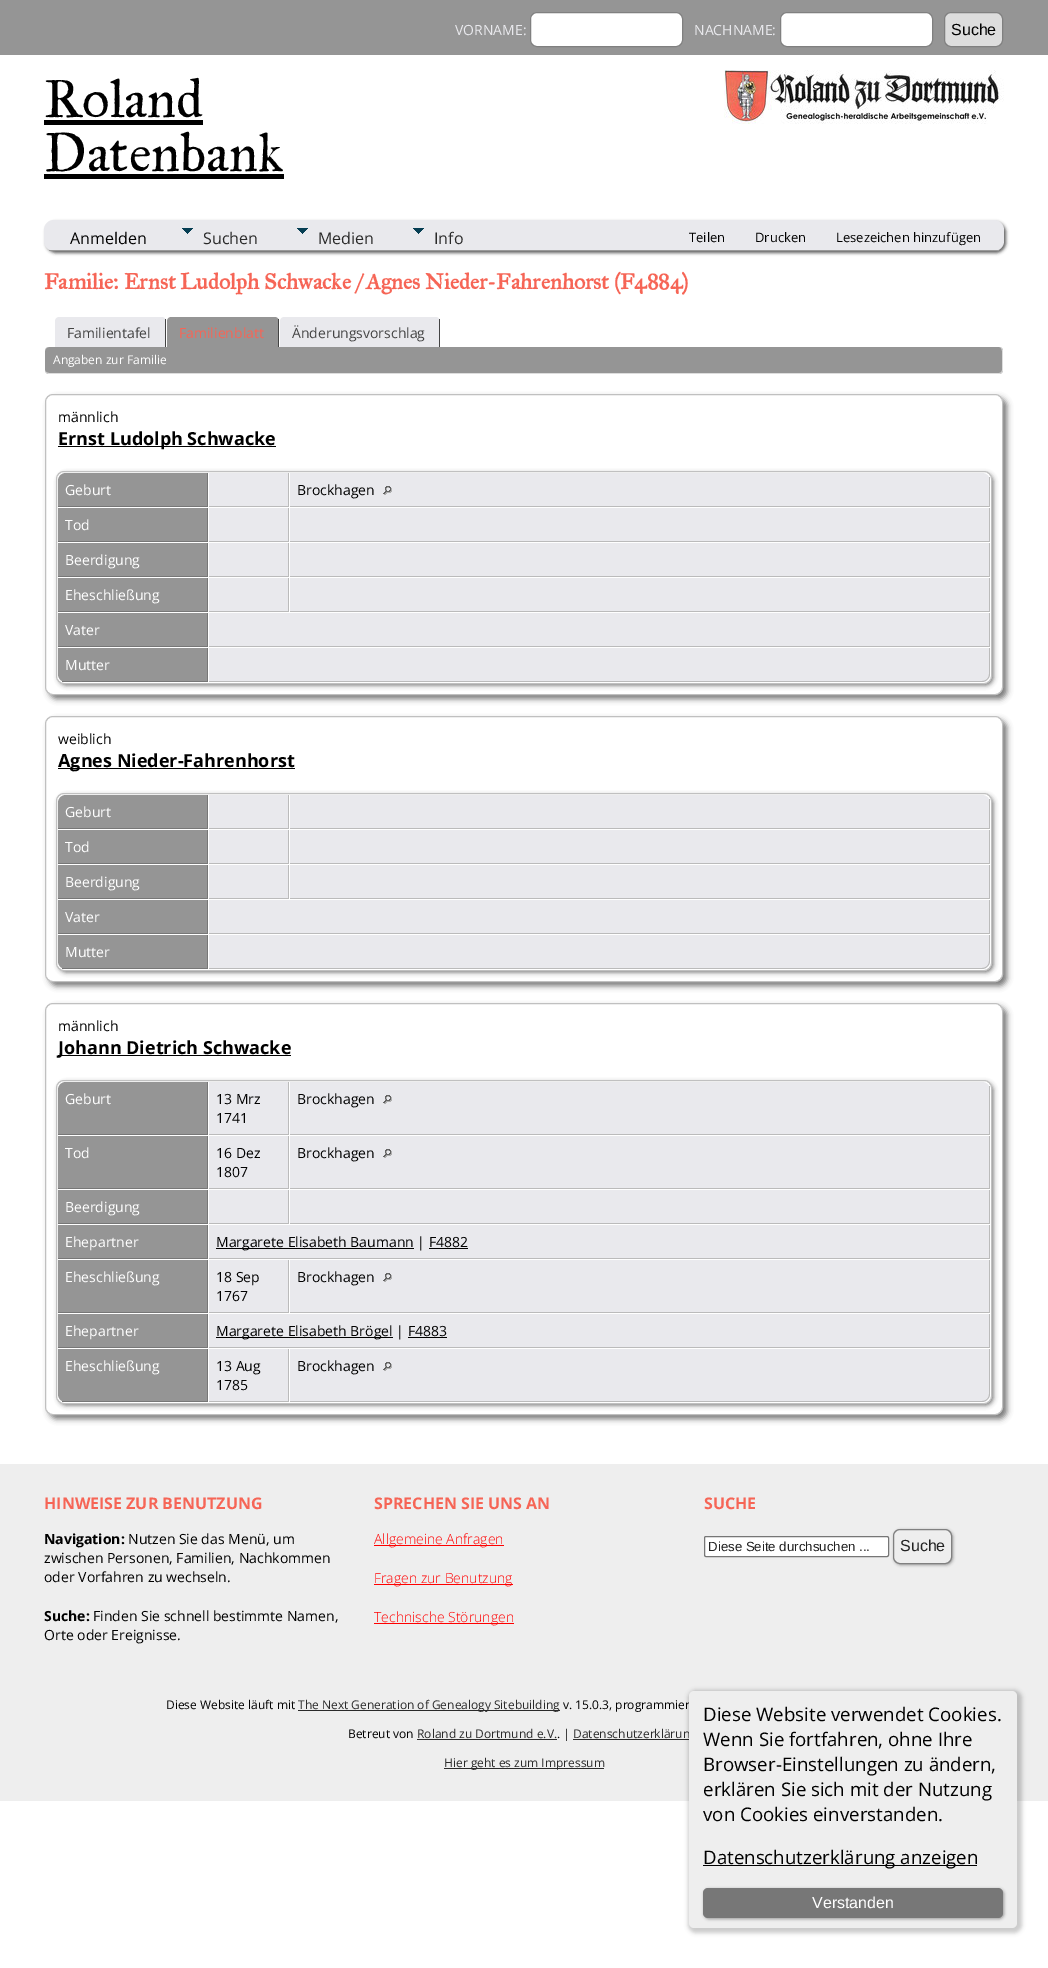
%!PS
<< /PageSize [1048 1968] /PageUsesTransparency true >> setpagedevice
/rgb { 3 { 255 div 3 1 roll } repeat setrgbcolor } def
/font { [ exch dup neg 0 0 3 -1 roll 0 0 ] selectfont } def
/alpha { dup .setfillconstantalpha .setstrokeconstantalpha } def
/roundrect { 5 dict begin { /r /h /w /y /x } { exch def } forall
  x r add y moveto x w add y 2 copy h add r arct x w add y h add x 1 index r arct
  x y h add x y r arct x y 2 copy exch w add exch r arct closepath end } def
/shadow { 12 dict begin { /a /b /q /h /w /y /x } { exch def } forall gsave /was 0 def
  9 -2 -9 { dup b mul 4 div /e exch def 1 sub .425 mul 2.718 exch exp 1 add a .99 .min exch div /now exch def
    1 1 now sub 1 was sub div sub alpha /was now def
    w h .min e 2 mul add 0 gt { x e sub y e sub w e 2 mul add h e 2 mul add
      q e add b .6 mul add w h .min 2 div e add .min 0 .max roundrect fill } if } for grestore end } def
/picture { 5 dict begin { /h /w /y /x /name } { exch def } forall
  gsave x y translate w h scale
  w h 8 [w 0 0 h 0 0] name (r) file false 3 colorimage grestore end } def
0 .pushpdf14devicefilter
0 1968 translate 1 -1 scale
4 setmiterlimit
255 255 255 rgb
0 0 1048 1968 rectfill
149 149 149 rgb
0 0 1048 55 rectfill
255 255 255 rgb
530.5 12.5 152 34 6.5 roundrect gsave fill grestore
128 128 128 rgb
stroke
255 255 255 rgb
780.5 12.5 152 34 6.5 roundrect gsave fill grestore
128 128 128 rgb
stroke
221 221 221 rgb
944.5 12.5 58 34 6.5 roundrect gsave fill grestore
128 128 128 rgb
stroke
102 102 102 rgb
46 222 960 31 10 1.5 1 shadow
233 233 237 rgb
44 220 960 31 10 roundrect fill
153 153 153 rgb
49 250 950 1 rectfill
(img/1.rgb) 182 228 11 6 picture
(img/1.rgb) 297 228 11 6 picture
(img/1.rgb) 413 228 11 6 picture
233 233 237 rgb
59 317 moveto 162 317 lineto 164 317 166 319 166 321 curveto 166 347 lineto 55 347 lineto 55 321 lineto 55 319 57 317 59 317 curveto closepath fill
68 68 68 rgb
165 319 1 28 rectfill
149 149 149 rgb
171 317 moveto 275 317 lineto 277 317 279 319 279 321 curveto 279 347 lineto 167 347 lineto 167 321 lineto 167 319 169 317 171 317 curveto closepath fill
68 68 68 rgb
278 319 1 28 rectfill
233 233 237 rgb
284 317 moveto 436 317 lineto 438 317 440 319 440 321 curveto 440 347 lineto 280 347 lineto 280 321 lineto 280 319 282 317 284 317 curveto closepath fill
68 68 68 rgb
439 319 1 28 rectfill
149 149 149 rgb
45 347 958 27 4 roundrect fill
221 221 221 rgb
49 347 moveto 999 347 lineto 1001 347 1003 349 1003 351 curveto 1003 370 lineto 1003 372 1001 374 999 374 curveto 49 374 lineto 47 374 45 372 45 370 curveto 45 351 lineto 45 349 47 347 49 347 curveto closepath 49 347 moveto 999 347 lineto 1001 347 1002 349 1002 351 curveto 1002 370 lineto 1002 372 1001 373 999 373 curveto 49 373 lineto 47 373 45 372 45 370 curveto 45 351 lineto 45 349 47 347 49 347 curveto closepath eofill
119 119 119 rgb
49 398 958 301 8 3 1 shadow
255 255 255 rgb
45.5 394.5 957 300 7.5 roundrect gsave fill grestore
192 192 192 rgb
stroke
0 0 0 rgb
58 446 218 1 rectfill
102 102 102 rgb
59 474 934 211 7 2.5 1 shadow
255 255 255 rgb
56.5 471.5 935 212 7.5 roundrect gsave fill grestore
192 192 192 rgb
stroke
149 149 149 rgb
66 473 moveto 208 473 lineto 208 507 lineto 58 507 lineto 58 481 lineto 58 476.5 61.5 473 66 473 curveto closepath fill
[
  [207 473 1 34 119 119 119]
  [58 506 150 1 119 119 119]
  [209 473 79 33 233 233 237]
  [288 473 1 34 187 187 187]
  [209 506 80 1 187 187 187]
] { aload pop rgb rectfill } forall
233 233 237 rgb
290 473 moveto 982 473 lineto 986.5 473 990 476.5 990 481 curveto 990 507 lineto 290 507 lineto closepath fill
187 187 187 rgb
989 477 1 30 rectfill
290 506 700 1 rectfill
(img/2.rgb) 383 486 9 9 picture
[
  [58 508 149 33 149 149 149]
  [207 508 1 34 119 119 119]
  [58 541 150 1 119 119 119]
  [209 508 79 33 233 233 237]
  [288 508 1 34 187 187 187]
  [209 541 80 1 187 187 187]
  [290 508 699 33 233 233 237]
  [989 508 1 34 187 187 187]
  [290 541 700 1 187 187 187]
  [58 543 149 33 149 149 149]
  [207 543 1 34 119 119 119]
  [58 576 150 1 119 119 119]
  [209 543 79 33 233 233 237]
  [288 543 1 34 187 187 187]
  [209 576 80 1 187 187 187]
  [290 543 699 33 233 233 237]
  [989 543 1 34 187 187 187]
  [290 576 700 1 187 187 187]
  [58 578 149 33 149 149 149]
  [207 578 1 34 119 119 119]
  [58 611 150 1 119 119 119]
  [209 578 79 33 233 233 237]
  [288 578 1 34 187 187 187]
  [209 611 80 1 187 187 187]
  [290 578 699 33 233 233 237]
  [989 578 1 34 187 187 187]
  [290 611 700 1 187 187 187]
  [58 613 149 33 149 149 149]
  [207 613 1 34 119 119 119]
  [58 646 150 1 119 119 119]
  [209 613 780 33 233 233 237]
  [989 613 1 34 187 187 187]
  [209 646 781 1 187 187 187]
] { aload pop rgb rectfill } forall
149 149 149 rgb
58 648 moveto 208 648 lineto 208 682 lineto 66 682 lineto 61.5 682 58 678.5 58 674 curveto closepath fill
119 119 119 rgb
207 648 1 34 rectfill
62 681 146 1 rectfill
233 233 237 rgb
209 648 moveto 990 648 lineto 990 674 lineto 990 678.5 986.5 682 982 682 curveto 209 682 lineto closepath fill
187 187 187 rgb
209 648 moveto 990 648 lineto 990 674 lineto 990 678 986 682 982 682 curveto 209 682 lineto closepath 209 648 moveto 989 648 lineto 989 674 lineto 989 678 986 681 982 681 curveto 209 681 lineto closepath eofill
119 119 119 rgb
49 720 958 266 8 3 1 shadow
255 255 255 rgb
45.5 716.5 957 265 7.5 roundrect gsave fill grestore
192 192 192 rgb
stroke
0 0 0 rgb
58 768 237 1 rectfill
102 102 102 rgb
59 796 934 176 7 2.5 1 shadow
255 255 255 rgb
56.5 793.5 935 177 7.5 roundrect gsave fill grestore
192 192 192 rgb
stroke
149 149 149 rgb
66 795 moveto 208 795 lineto 208 829 lineto 58 829 lineto 58 803 lineto 58 798.5 61.5 795 66 795 curveto closepath fill
[
  [207 795 1 34 119 119 119]
  [58 828 150 1 119 119 119]
  [209 795 79 33 233 233 237]
  [288 795 1 34 187 187 187]
  [209 828 80 1 187 187 187]
] { aload pop rgb rectfill } forall
233 233 237 rgb
290 795 moveto 982 795 lineto 986.5 795 990 798.5 990 803 curveto 990 829 lineto 290 829 lineto closepath fill
[
  [989 799 1 30 187 187 187]
  [290 828 700 1 187 187 187]
  [58 830 149 33 149 149 149]
  [207 830 1 34 119 119 119]
  [58 863 150 1 119 119 119]
  [209 830 79 33 233 233 237]
  [288 830 1 34 187 187 187]
  [209 863 80 1 187 187 187]
  [290 830 699 33 233 233 237]
  [989 830 1 34 187 187 187]
  [290 863 700 1 187 187 187]
  [58 865 149 33 149 149 149]
  [207 865 1 34 119 119 119]
  [58 898 150 1 119 119 119]
  [209 865 79 33 233 233 237]
  [288 865 1 34 187 187 187]
  [209 898 80 1 187 187 187]
  [290 865 699 33 233 233 237]
  [989 865 1 34 187 187 187]
  [290 898 700 1 187 187 187]
  [58 900 149 33 149 149 149]
  [207 900 1 34 119 119 119]
  [58 933 150 1 119 119 119]
  [209 900 780 33 233 233 237]
  [989 900 1 34 187 187 187]
  [209 933 781 1 187 187 187]
] { aload pop rgb rectfill } forall
149 149 149 rgb
58 935 moveto 208 935 lineto 208 969 lineto 66 969 lineto 61.5 969 58 965.5 58 961 curveto closepath fill
119 119 119 rgb
207 935 1 34 rectfill
62 968 146 1 rectfill
233 233 237 rgb
209 935 moveto 990 935 lineto 990 961 lineto 990 965.5 986.5 969 982 969 curveto 209 969 lineto closepath fill
187 187 187 rgb
209 935 moveto 990 935 lineto 990 961 lineto 990 965 986 969 982 969 curveto 209 969 lineto closepath 209 935 moveto 989 935 lineto 989 961 lineto 989 965 986 968 982 968 curveto 209 968 lineto closepath eofill
119 119 119 rgb
49 1007 958 412 8 3 1 shadow
255 255 255 rgb
45.5 1003.5 957 411 7.5 roundrect gsave fill grestore
192 192 192 rgb
stroke
0 0 0 rgb
58 1055 233 1 rectfill
102 102 102 rgb
59 1083 934 322 7 2.5 1 shadow
255 255 255 rgb
56.5 1080.5 935 323 7.5 roundrect gsave fill grestore
192 192 192 rgb
stroke
149 149 149 rgb
66 1082 moveto 208 1082 lineto 208 1135 lineto 58 1135 lineto 58 1090 lineto 58 1085.5 61.5 1082 66 1082 curveto closepath fill
[
  [207 1082 1 53 119 119 119]
  [58 1134 150 1 119 119 119]
  [209 1082 79 52 233 233 237]
  [288 1082 1 53 187 187 187]
  [209 1134 80 1 187 187 187]
] { aload pop rgb rectfill } forall
233 233 237 rgb
290 1082 moveto 982 1082 lineto 986.5 1082 990 1085.5 990 1090 curveto 990 1135 lineto 290 1135 lineto closepath fill
187 187 187 rgb
989 1086 1 49 rectfill
290 1134 700 1 rectfill
(img/2.rgb) 383 1095 9 9 picture
[
  [58 1136 149 52 149 149 149]
  [207 1136 1 53 119 119 119]
  [58 1188 150 1 119 119 119]
  [209 1136 79 52 233 233 237]
  [288 1136 1 53 187 187 187]
  [209 1188 80 1 187 187 187]
  [290 1136 699 52 233 233 237]
  [989 1136 1 53 187 187 187]
  [290 1188 700 1 187 187 187]
] { aload pop rgb rectfill } forall
(img/2.rgb) 383 1149 9 9 picture
[
  [58 1190 149 33 149 149 149]
  [207 1190 1 34 119 119 119]
  [58 1223 150 1 119 119 119]
  [209 1190 79 33 233 233 237]
  [288 1190 1 34 187 187 187]
  [209 1223 80 1 187 187 187]
  [290 1190 699 33 233 233 237]
  [989 1190 1 34 187 187 187]
  [290 1223 700 1 187 187 187]
  [58 1225 149 33 149 149 149]
  [207 1225 1 34 119 119 119]
  [58 1258 150 1 119 119 119]
  [209 1225 780 33 233 233 237]
  [989 1225 1 34 187 187 187]
  [209 1258 781 1 187 187 187]
  [216 1248 198 1 0 0 0]
  [429 1248 39 1 0 0 0]
  [58 1260 149 52 149 149 149]
  [207 1260 1 53 119 119 119]
  [58 1312 150 1 119 119 119]
  [209 1260 79 52 233 233 237]
  [288 1260 1 53 187 187 187]
  [209 1312 80 1 187 187 187]
  [290 1260 699 52 233 233 237]
  [989 1260 1 53 187 187 187]
  [290 1312 700 1 187 187 187]
] { aload pop rgb rectfill } forall
(img/2.rgb) 383 1273 9 9 picture
[
  [58 1314 149 33 149 149 149]
  [207 1314 1 34 119 119 119]
  [58 1347 150 1 119 119 119]
  [209 1314 780 33 233 233 237]
  [989 1314 1 34 187 187 187]
  [209 1347 781 1 187 187 187]
  [216 1337 177 1 0 0 0]
  [408 1337 39 1 0 0 0]
] { aload pop rgb rectfill } forall
149 149 149 rgb
58 1349 moveto 208 1349 lineto 208 1402 lineto 66 1402 lineto 61.5 1402 58 1398.5 58 1394 curveto closepath fill
[
  [207 1349 1 53 119 119 119]
  [62 1401 146 1 119 119 119]
  [209 1349 79 52 233 233 237]
  [288 1349 1 53 187 187 187]
  [209 1401 80 1 187 187 187]
] { aload pop rgb rectfill } forall
233 233 237 rgb
290 1349 moveto 990 1349 lineto 990 1394 lineto 990 1398.5 986.5 1402 982 1402 curveto 290 1402 lineto closepath fill
187 187 187 rgb
290 1349 moveto 990 1349 lineto 990 1394 lineto 990 1398 986 1402 982 1402 curveto 290 1402 lineto closepath 290 1349 moveto 989 1349 lineto 989 1394 lineto 989 1398 986 1401 982 1401 curveto 290 1401 lineto closepath eofill
(img/2.rgb) 383 1362 9 9 picture
238 238 238 rgb
0 1464 1048 337 rectfill
42 42 42 rgb
573 1739 124 1 rectfill
0 0 0 rgb
688 1690 334 243 8 2 0.2 shadow
[
  [374 1545 130 1 255 0 0]
  [374 1584 139 1 255 0 0]
  [374 1623 140 1 255 0 0]
] { aload pop rgb rectfill } forall
255 255 255 rgb
704.5 1536.5 184 20 1.5 roundrect gsave fill grestore
118 118 118 rgb
stroke
153 153 153 rgb
894 1530 59 35 7 1.5 1 shadow
238 238 238 rgb
893.5 1529.5 58 34 6.5 roundrect gsave fill grestore
128 128 128 rgb
stroke
[
  [298 1710 262 1 42 42 42]
  [417 1739 140 1 42 42 42]
  [444 1768 160 1 42 42 42]
  [44 120 159 5 0 0 0]
  [44 174 240 5 0 0 0]
] { aload pop rgb rectfill } forall
(img/3.rgb) 724 70 280 54 picture
/OpenSans-Regular 14 font
233 233 237 rgb
455 35 moveto (VORNAME:) show
694 35 moveto (NACHNAME:) show
/LiberationSans-Regular 16 font
0 0 0 rgb
951 35 moveto (Suche) show
/OpenSans-Regular 16 font
70 244 moveto (Anmelden) show
42 42 42 rgb
[
  [(Suchen) 203 244]
  [(Medien) 318 244]
  [(Info) 434 244]
] { aload pop moveto show } forall
/OpenSans-Regular 13 font
0 0 0 rgb
[
  [(Teilen) 689 242]
  [(Drucken) 755 242]
  [(Lesezeichen hinzufügen) 836 242]
] { aload pop moveto show } forall
/IMFELLGreatPrimer-Bold 22 font
246 101 86 rgb
44 289 moveto (Familie: Ernst Ludolph Schwacke / Agnes Nieder-Fahrenhorst \(F4884\)) show
/OpenSans-Regular 14 font
68 68 68 rgb
67 338 moveto (Familientafel) show
246 101 86 rgb
179 338 moveto (Familienblatt) show
68 68 68 rgb
292 338 moveto (Änderungsvorschlag) show
/OpenSans-Regular 12 font
255 255 255 rgb
53 364 moveto (Angaben zur Familie) show
/OpenSans-Regular 14 font
0 0 0 rgb
58 422 moveto (männlich) show
/OpenSans-Bold 18 font
58 445 moveto (Ernst Ludolph Schwacke) show
/OpenSans-Regular 14 font
255 255 255 rgb
65 495 moveto (Geburt) show
0 0 0 rgb
297 495 moveto (Brockhagen) show
255 255 255 rgb
[
  [(Tod) 65 530]
  [(Beerdigung) 65 565]
  [(Eheschließung) 65 600]
  [(Vater) 65 635]
  [(Mutter) 65 670]
] { aload pop moveto show } forall
0 0 0 rgb
58 744 moveto (weiblich) show
/OpenSans-Bold 18 font
58 767 moveto (Agnes Nieder-Fahrenhorst) show
/OpenSans-Regular 14 font
255 255 255 rgb
[
  [(Geburt) 65 817]
  [(Tod) 65 852]
  [(Beerdigung) 65 887]
  [(Vater) 65 922]
  [(Mutter) 65 957]
] { aload pop moveto show } forall
0 0 0 rgb
58 1031 moveto (männlich) show
/OpenSans-Bold 18 font
58 1054 moveto (Johann Dietrich Schwacke) show
/OpenSans-Regular 14 font
255 255 255 rgb
65 1104 moveto (Geburt) show
0 0 0 rgb
[
  [(13 Mrz) 216 1104]
  [(1741) 216 1123]
  [(Brockhagen) 297 1104]
] { aload pop moveto show } forall
255 255 255 rgb
65 1158 moveto (Tod) show
0 0 0 rgb
[
  [(16 Dez) 216 1158]
  [(1807) 216 1177]
  [(Brockhagen) 297 1158]
] { aload pop moveto show } forall
255 255 255 rgb
65 1212 moveto (Beerdigung) show
65 1247 moveto (Ehepartner) show
0 0 0 rgb
216 1247 moveto (Margarete Elisabeth Baumann | F4882) show
255 255 255 rgb
65 1282 moveto (Eheschließung) show
0 0 0 rgb
[
  [(18 Sep) 216 1282]
  [(1767) 216 1301]
  [(Brockhagen) 297 1282]
] { aload pop moveto show } forall
255 255 255 rgb
65 1336 moveto (Ehepartner) show
0 0 0 rgb
216 1336 moveto (Margarete Elisabeth Brögel | F4883) show
255 255 255 rgb
65 1371 moveto (Eheschließung) show
0 0 0 rgb
[
  [(13 Aug) 216 1371]
  [(1785) 216 1390]
  [(Brockhagen) 297 1371]
] { aload pop moveto show } forall
/OpenSans-Bold 16 font
246 101 86 rgb
44 1509 moveto (HINWEISE ZUR BENUTZUNG) show
/OpenSans-Bold 14 font
0 0 0 rgb
44 1544 moveto (Navigation:) show
/OpenSans-Regular 14 font
[
  [(Nutzen Sie das Menü, um) 128 1544]
  [(zwischen Personen, Familien, Nachkommen) 44 1563]
  [(oder Vorfahren zu wechseln.) 44 1582]
] { aload pop moveto show } forall
/OpenSans-Bold 14 font
44 1621 moveto (Suche:) show
/OpenSans-Regular 14 font
93 1621 moveto (Finden Sie schnell bestimmte Namen,) show
44 1640 moveto (Orte oder Ereignisse.) show
/OpenSans-Bold 16 font
246 101 86 rgb
374 1509 moveto (SPRECHEN SIE UNS AN) show
/OpenSans-Light 14 font
255 0 0 rgb
[
  [(Allgemeine Anfragen) 374 1544]
  [(Fragen zur Benutzung) 374 1583]
  [(Technische Störungen) 374 1622]
] { aload pop moveto show } forall
/OpenSans-Bold 16 font
246 101 86 rgb
704 1509 moveto (SUCHE) show
/LiberationSans-Regular 13.25 font
34 34 34 rgb
708 1551 moveto (Diese Seite durchsuchen ...) show
/LiberationSans-Regular 16 font
900 1551 moveto (Suche) show
/OpenSans-Regular 12 font
0 0 0 rgb
166 1709 moveto (Diese Website läuft mit) show
42 42 42 rgb
298 1709 moveto (The Next Generation of Genealogy Sitebuilding) show
0 0 0 rgb
563 1709 moveto (v. 15.0.3, programmier) show
348 1738 moveto (Betreut von) show
42 42 42 rgb
417 1738 moveto (Roland zu Dortmund e.V.) show
0 0 0 rgb
557 1738 moveto (. |) show
42 42 42 rgb
573 1738 moveto (Datenschutzerklärun) show
238 238 238 rgb
689 1691 328 237 5 roundrect fill
153 153 153 rgb
704 1889 300 30 5 1.5 1 shadow
119 119 119 rgb
703 1888 300 30 5 roundrect fill
/LiberationSans-Regular 16 font
255 255 255 rgb
812 1908 moveto (Verstanden) show
0 0 0 rgb
703 1865 274 1 rectfill
/OpenSans-Regular 18.7 font
[
  [(Datenschutzerklärung anzeigen) 703 1864]
  [(von Cookies einverstanden.) 703 1821]
  [(erklären Sie sich mit der Nutzung) 703 1796]
  [(Browser-Einstellungen zu ändern,) 703 1771]
  [(Wenn Sie fortfahren, ohne Ihre) 703 1746]
  [(Diese Website verwendet Cookies.) 703 1721]
] { aload pop moveto show } forall
/OpenSans-Regular 12 font
42 42 42 rgb
444 1767 moveto (Hier geht es zum Impressum) show
/IMFELLGreatPrimer-Regular 54 font
0 0 0 rgb
44 117 moveto (Roland) show
44 171 moveto (Datenbank) show
.poppdf14devicefilter showpage
